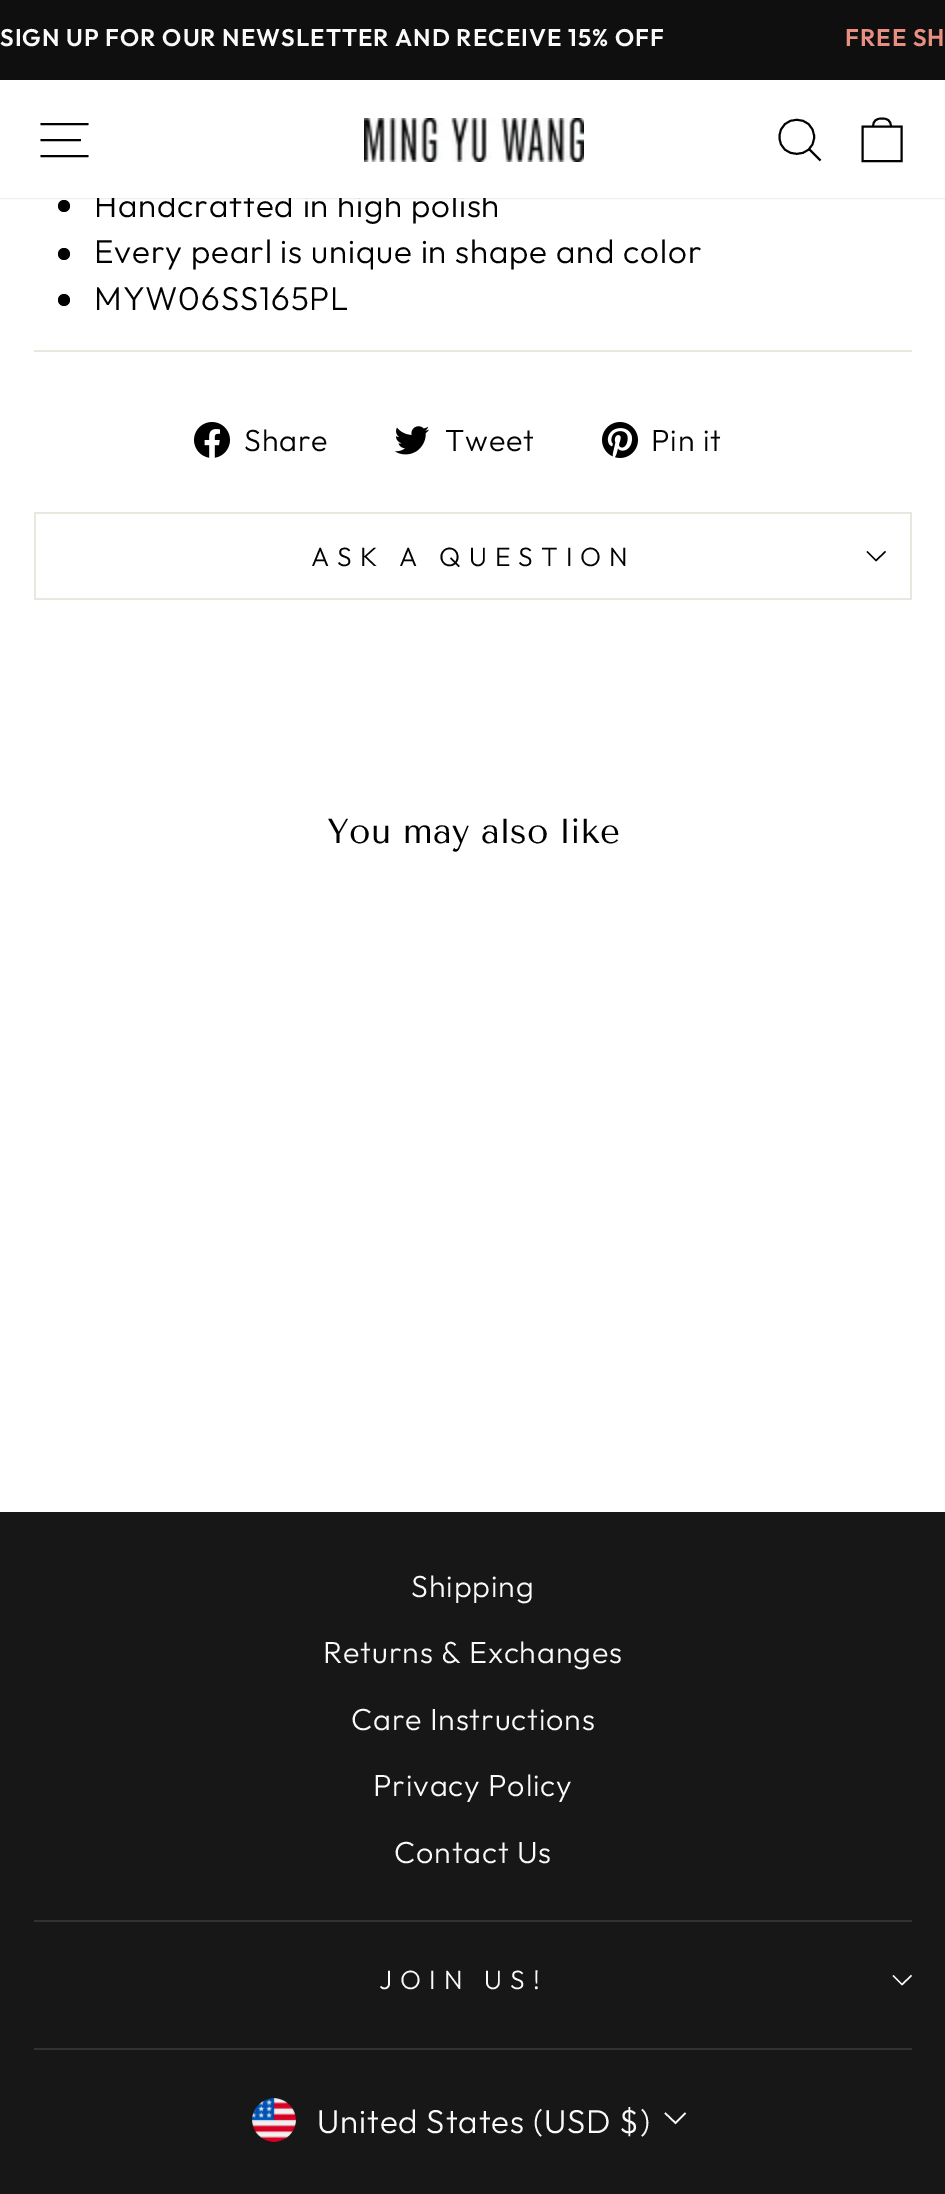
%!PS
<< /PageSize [945 2194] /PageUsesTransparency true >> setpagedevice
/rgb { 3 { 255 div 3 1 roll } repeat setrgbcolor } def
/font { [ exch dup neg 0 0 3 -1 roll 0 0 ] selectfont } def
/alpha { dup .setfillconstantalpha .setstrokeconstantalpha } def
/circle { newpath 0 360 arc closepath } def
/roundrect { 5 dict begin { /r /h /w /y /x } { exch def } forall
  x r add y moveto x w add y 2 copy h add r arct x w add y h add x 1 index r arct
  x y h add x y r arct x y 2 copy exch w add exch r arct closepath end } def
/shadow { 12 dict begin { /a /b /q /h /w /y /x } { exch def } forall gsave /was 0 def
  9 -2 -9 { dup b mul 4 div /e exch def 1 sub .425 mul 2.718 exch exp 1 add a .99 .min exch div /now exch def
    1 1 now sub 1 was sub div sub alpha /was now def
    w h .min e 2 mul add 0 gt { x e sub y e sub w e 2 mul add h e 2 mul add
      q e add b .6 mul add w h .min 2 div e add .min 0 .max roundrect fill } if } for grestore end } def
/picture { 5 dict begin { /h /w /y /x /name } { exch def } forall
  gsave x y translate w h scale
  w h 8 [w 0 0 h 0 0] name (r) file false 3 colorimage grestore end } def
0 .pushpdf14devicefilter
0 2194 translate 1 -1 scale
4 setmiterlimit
255 255 255 rgb
0 0 945 2194 rectfill
0 0 0 rgb
64 206 6 circle fill
0 80 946 118 0 1 0.2 shadow
15 15 15 rgb
0 0 945 80 rectfill
0 0 0 rgb
64 254 6 circle fill
64 300 6 circle fill
232 232 225 rgb
34 350 878 2 rectfill
(img/2.rgb) 194 422 36 36 picture
(img/3.rgb) 394 426 35 29 picture
(img/4.rgb) 602 422 36 36 picture
[
  [34 598 878 2 232 232 225]
  [34 512 878 2 232 232 225]
  [910 512 2 86 232 232 225]
  [34 512 2 86 232 232 225]
] { aload pop rgb rectfill } forall
0 0 0 rgb
1.4 setlinewidth
867 551.5 moveto 876 560.5 lineto 885.5 551.5 lineto stroke
23 23 23 rgb
0 1512 945 682 rectfill
50 50 50 rgb
34 1920 878 2 rectfill
250 250 250 rgb
893 1975.5 moveto 902 1984.5 lineto 911.5 1975.5 lineto stroke
50 50 50 rgb
34 2048 878 2 rectfill
(img/5.rgb) 252 2098 44 44 picture
250 250 250 rgb
1.6 setlinewidth
665 2113 moveto 675.5 2123 lineto 685.5 2113 lineto stroke
/Outfit-SemiBold 24 font
0 46 moveto 1 0 (SIGN UP FOR OUR NEWSLETTER AND RECEIVE 15% OFF) ashow
232 143 130 rgb
845 46 moveto 1 0 (FREE SH) ashow
/Outfit-Light 33.1 font
0 0 0 rgb
94 217 moveto 0.85 0 (Handcrafted in high polish) ashow
255 255 255 rgb
0 80 945 118 rectfill
(img/1.rgb) 364 118 220 44 picture
0 0 0 rgb
1.9 setlinewidth
862.5 126.5 moveto 901.5 126.5 lineto 901.5 161 lineto 862.5 161 lineto closepath 873 127 moveto 873 120 877 118.5 882 118.5 curveto 887 118.5 891 120 891 127 curveto stroke
814 137 moveto 814 159.5 779.5 159.5 779.5 137 curveto 779.5 114 814 114 814 137 curveto closepath 820.5 160.5 moveto 809.5 149.5 lineto stroke
40.5 124 moveto 88.5 124 lineto 40.5 140 moveto 81 140 lineto 40.5 156 moveto 88.5 156 lineto stroke
94 263 moveto 0.85 0 (Every pearl is unique in shape and color) ashow
94 310 moveto 0.85 0 (MYW06SS165PL) ashow
/Outfit-Light 30.5 font
244 451 moveto 0.85 0 (Share) ashow
445 451 moveto 0.85 0 (Tweet) ashow
651 451 moveto 0.85 0 (Pin it) ashow
/Outfit-Light 26.5 font
311 566 moveto 8 0 (ASK A QUESTION) ashow
/TenorSans-Regular 34.75 font
327 843 moveto (You may also like) show
/Outfit-Light 30.5 font
250 250 250 rgb
411 1597 moveto 0.85 0 (Shipping) ashow
323 1663 moveto 0.85 0 (Returns & Exchanges) ashow
351 1730 moveto 0.85 0 (Care Instructions) ashow
373 1796 moveto 0.85 0 (Privacy Policy) ashow
394 1863 moveto 0.85 0 (Contact Us) ashow
/Outfit-Light 26.5 font
379 1989 moveto 8 0 (JOIN US!) ashow
/Outfit-Light 33.1 font
317 2133 moveto 0.85 0 (United States \(USD $\)) ashow
.poppdf14devicefilter showpage
